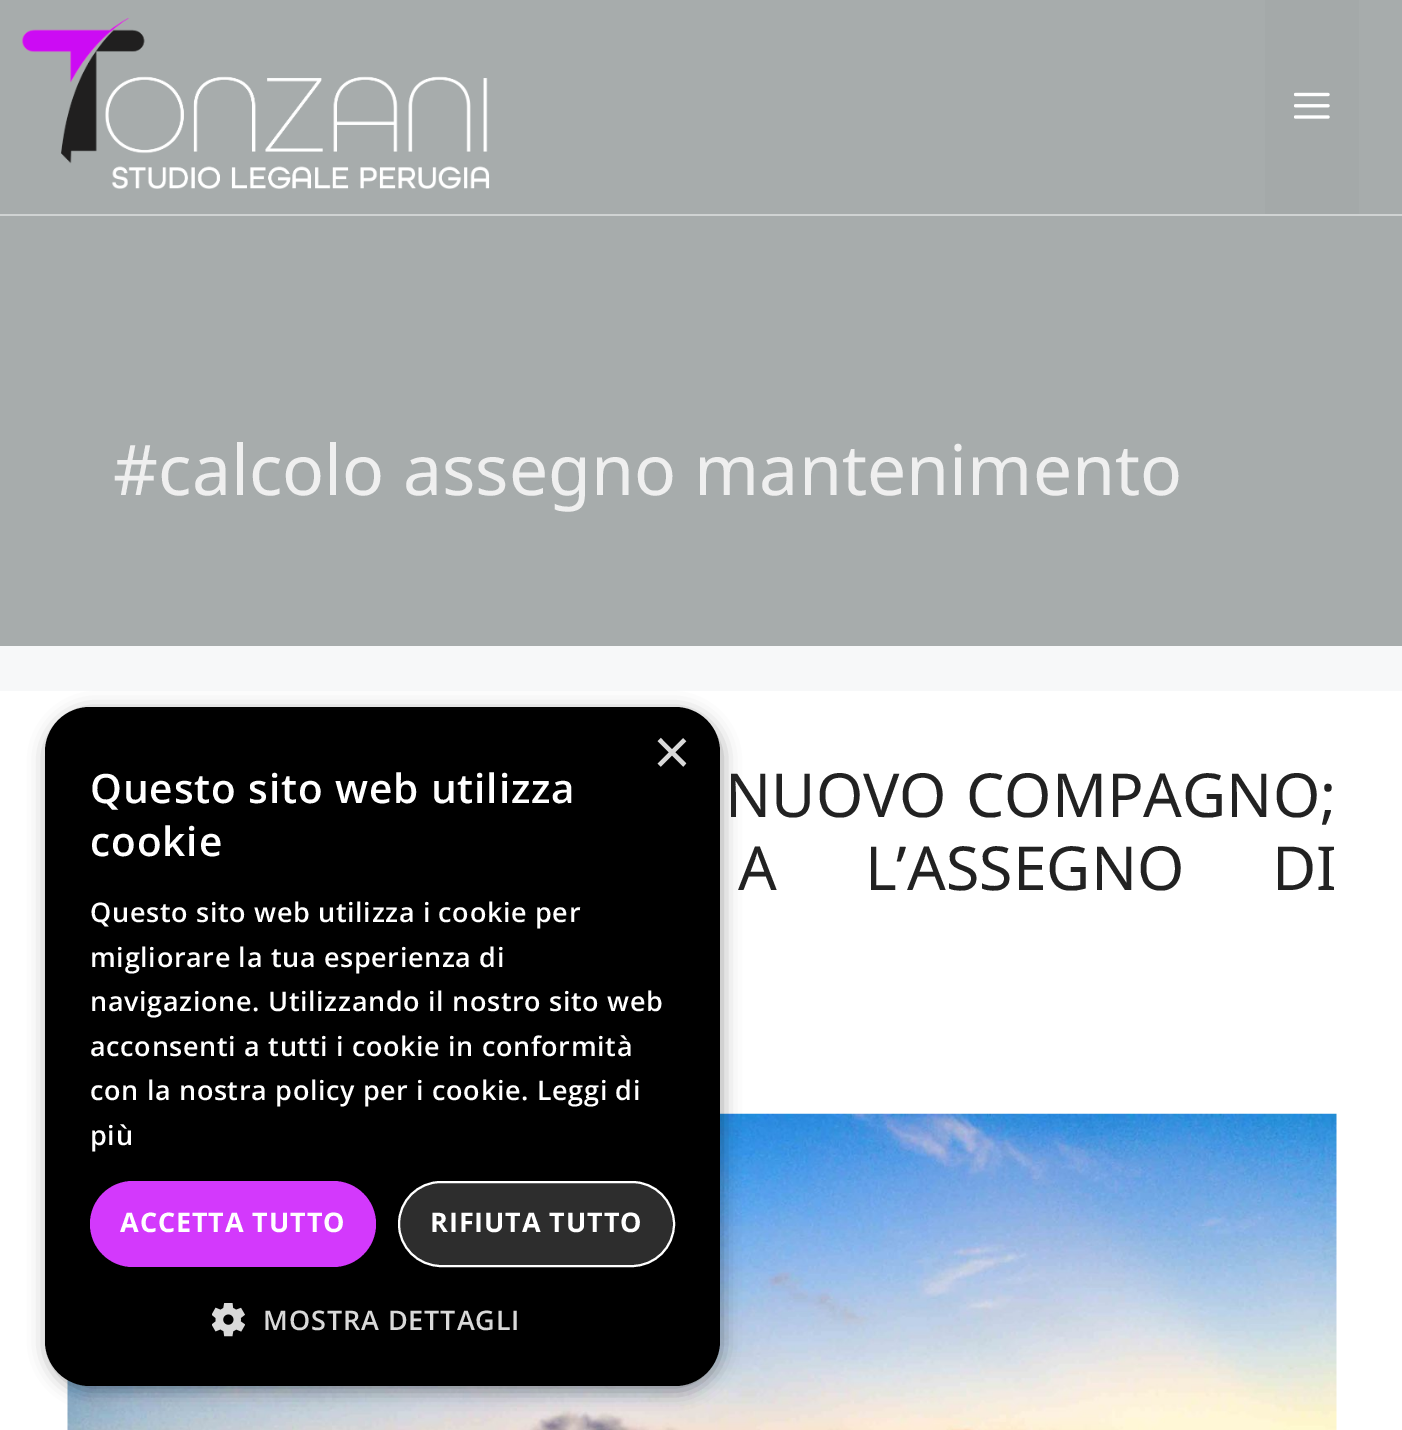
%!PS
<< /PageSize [1402 1430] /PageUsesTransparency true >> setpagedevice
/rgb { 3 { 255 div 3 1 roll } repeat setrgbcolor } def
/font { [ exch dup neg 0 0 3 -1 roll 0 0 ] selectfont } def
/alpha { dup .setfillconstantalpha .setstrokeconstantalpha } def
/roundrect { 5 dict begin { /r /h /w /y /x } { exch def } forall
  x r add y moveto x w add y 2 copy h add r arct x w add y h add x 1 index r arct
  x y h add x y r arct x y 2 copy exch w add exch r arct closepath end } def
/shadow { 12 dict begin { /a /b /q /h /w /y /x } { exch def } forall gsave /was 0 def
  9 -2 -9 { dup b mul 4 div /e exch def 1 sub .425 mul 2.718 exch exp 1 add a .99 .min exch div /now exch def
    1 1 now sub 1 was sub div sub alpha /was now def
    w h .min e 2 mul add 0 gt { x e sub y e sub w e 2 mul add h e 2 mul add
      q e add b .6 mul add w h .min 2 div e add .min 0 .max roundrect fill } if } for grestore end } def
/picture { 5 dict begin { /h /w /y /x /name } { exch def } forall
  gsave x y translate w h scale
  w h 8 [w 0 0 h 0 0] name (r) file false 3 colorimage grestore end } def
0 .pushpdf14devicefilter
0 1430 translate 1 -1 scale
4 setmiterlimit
247 248 249 rgb
0 0 1402 1430 rectfill
167 172 172 rgb
0 0 1402 646 rectfill
208 211 211 rgb
0 214 1402 2 rectfill
(img/1.rgb) 22 18 468 171 picture
164 169 169 rgb
1265 0 94 214 rectfill
(img/2.rgb) 1294 92 36 27 picture
255 255 255 rgb
0 691 1402 739 rectfill
(img/4.rgb) 67 1113 1270 317 picture
0 0 0 rgb
47 711 675 680 45 9 0.35 shadow
45 707 675 679 45 roundrect fill
211 57 252 rgb
90 1181 286 86 43 roundrect fill
45 45 45 rgb
399 1182 275 84 42 roundrect gsave fill grestore
255 255 255 rgb
2 setlinewidth
stroke
(img/3.rgb) 212 1303 33 34 picture
/NotoSans-Regular 69.75 font
239 239 239 rgb
113 495 moveto (#calcolo assegno mantenimento) show
/LiberationSans-Regular 65 font
217 217 217 rgb
653 774 moveto (×) show
/OpenSans-SemiBold 40.5 font
255 255 255 rgb
90 803 moveto 0.9 0 (Questo sito web utilizza) ashow
90 856 moveto 0.9 0 (cookie) ashow
/OpenSans-SemiBold 27 font
90 922 moveto 0.65 0 (Questo sito web utilizza i cookie per) ashow
90 967 moveto 0.65 0 (migliorare la tua esperienza di) ashow
90 1011 moveto 0.65 0 (navigazione. Utilizzando il nostro sito web) ashow
90 1056 moveto 0.65 0 (acconsenti a tutti i cookie in conformità) ashow
90 1100 moveto 0.65 0 (con la nostra policy per i cookie. Leggi di) ashow
90 1145 moveto 0.65 0 (più) ashow
/OpenSans-Bold 27 font
120 1232 moveto 0.9 0 (ACCETTA TUTTO) ashow
430 1232 moveto 0.9 0 (RIFIUTA TUTTO) ashow
/OpenSans-SemiBold 27 font
217 217 217 rgb
263 1330 moveto 0.9 0 (MOSTRA DETTAGLI) ashow
/NotoSans-Regular 60.75 font
34 34 34 rgb
725 817 moveto 3 0 32 (NUOVO COMPAGNO;) widthshow
738 890 moveto 72 0 32 (A L’ASSEGNO DI) widthshow
.poppdf14devicefilter showpage
